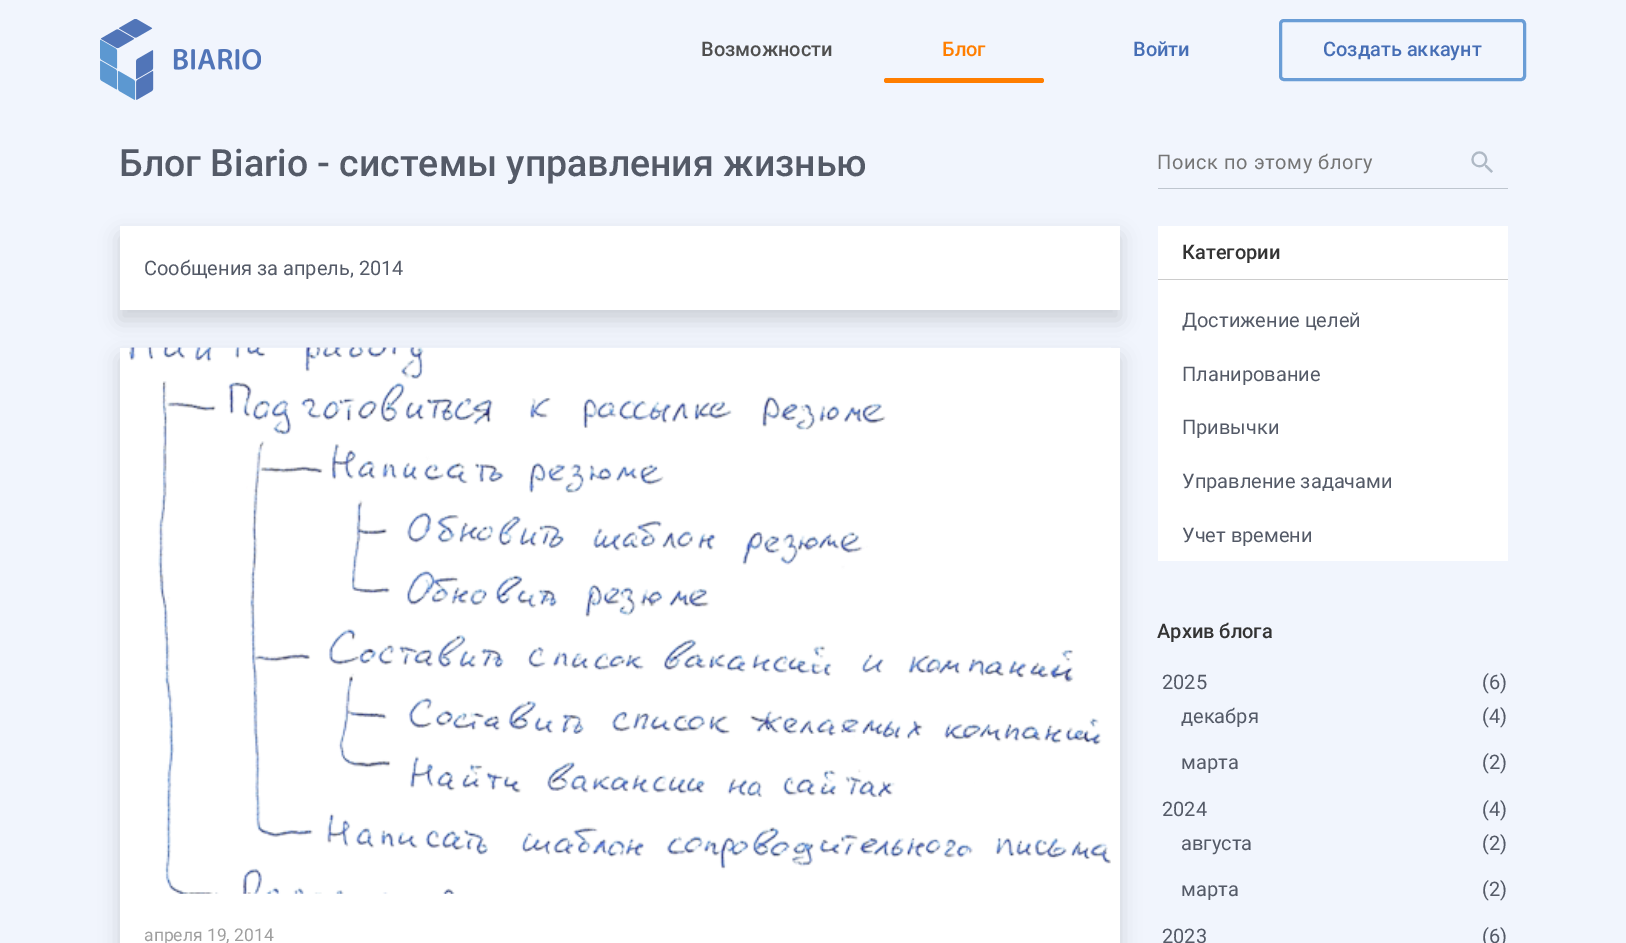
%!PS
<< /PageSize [1626 943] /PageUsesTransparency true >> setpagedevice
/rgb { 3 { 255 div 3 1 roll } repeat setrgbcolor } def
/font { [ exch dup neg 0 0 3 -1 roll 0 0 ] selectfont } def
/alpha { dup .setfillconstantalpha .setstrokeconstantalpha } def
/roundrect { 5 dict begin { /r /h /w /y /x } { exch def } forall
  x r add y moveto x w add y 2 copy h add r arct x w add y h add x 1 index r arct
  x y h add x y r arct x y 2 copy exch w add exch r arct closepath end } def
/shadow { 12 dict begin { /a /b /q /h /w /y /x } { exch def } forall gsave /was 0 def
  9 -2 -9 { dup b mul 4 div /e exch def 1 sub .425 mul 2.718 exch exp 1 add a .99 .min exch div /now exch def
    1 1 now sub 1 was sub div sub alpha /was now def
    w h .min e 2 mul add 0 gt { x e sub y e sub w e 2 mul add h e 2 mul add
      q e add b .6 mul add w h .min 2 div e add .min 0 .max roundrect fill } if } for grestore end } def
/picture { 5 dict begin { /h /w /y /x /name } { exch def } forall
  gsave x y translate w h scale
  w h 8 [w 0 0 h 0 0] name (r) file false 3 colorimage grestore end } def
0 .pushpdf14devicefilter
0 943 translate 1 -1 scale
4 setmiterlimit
241 245 253 rgb
0 0 1626 943 rectfill
(img/1.rgb) 100 19 161 81 picture
255 126 0 rgb
884 78 160 5 2.5 roundrect fill
106 157 214 rgb
3 setlinewidth
1280.5 20.5 244 59 3.5 roundrect stroke
191 198 207 rgb
1158 188 350 1 rectfill
(img/2.rgb) 1471 151 22 22 picture
0 0 0 rgb
120 236 1000 84 0 10 0.15 shadow
255 255 255 rgb
120 226 1000 84 rectfill
0 0 0 rgb
120 358 1000 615 0 10 0.15 shadow
255 255 255 rgb
120 348 1000 595 rectfill
(img/3.rgb) 129 347 982 547 picture
1158 226 350 335 rectfill
204 204 204 rgb
1158 279 350 1 rectfill
/Roboto-Medium 20 font
79 79 79 rgb
701 56 moveto (Возможности) show
255 126 0 rgb
942 56 moveto (Блог) show
70 110 181 rgb
1133 56 moveto (Войти) show
1323 56 moveto (Создать аккаунт) show
/Roboto-Medium 37.5 font
84 90 103 rgb
119 176 moveto (Блог Biario - системы управления жизнью) show
/Roboto-Regular 20 font
117 117 117 rgb
1157 169 moveto 0.6 0 (Поиск по этому блогу) ashow
84 90 103 rgb
144 275 moveto (Сообщения за апрель, 2014) show
/Roboto-Regular 17.5 font
159 159 159 rgb
144 941 moveto (апреля 19, 2014) show
/Roboto-Medium 20 font
51 51 51 rgb
1182 259 moveto (Категории) show
/Roboto-Regular 20 font
84 90 103 rgb
[
  [(Достижение целей) 1182 327]
  [(Планирование) 1182 381]
  [(Привычки) 1182 434]
  [(Управление задачами) 1182 488]
  [(Учет времени) 1182 542]
] { aload pop moveto show } forall
/Roboto-Medium 20 font
51 51 51 rgb
1157 638 moveto (Архив блога) show
/Roboto-Regular 20 font
84 90 103 rgb
[
  [(2025) 1162 689]
  [(\(6\)) 1482 689]
  [(декабря) 1181 723]
  [(\(4\)) 1482 723]
  [(марта) 1181 769]
  [(\(2\)) 1482 769]
  [(2024) 1162 816]
  [(\(4\)) 1482 816]
  [(августа) 1181 850]
  [(\(2\)) 1482 850]
  [(марта) 1181 896]
  [(\(2\)) 1482 896]
  [(2023) 1162 943]
  [(\(6\)) 1482 943]
] { aload pop moveto show } forall
.poppdf14devicefilter showpage
